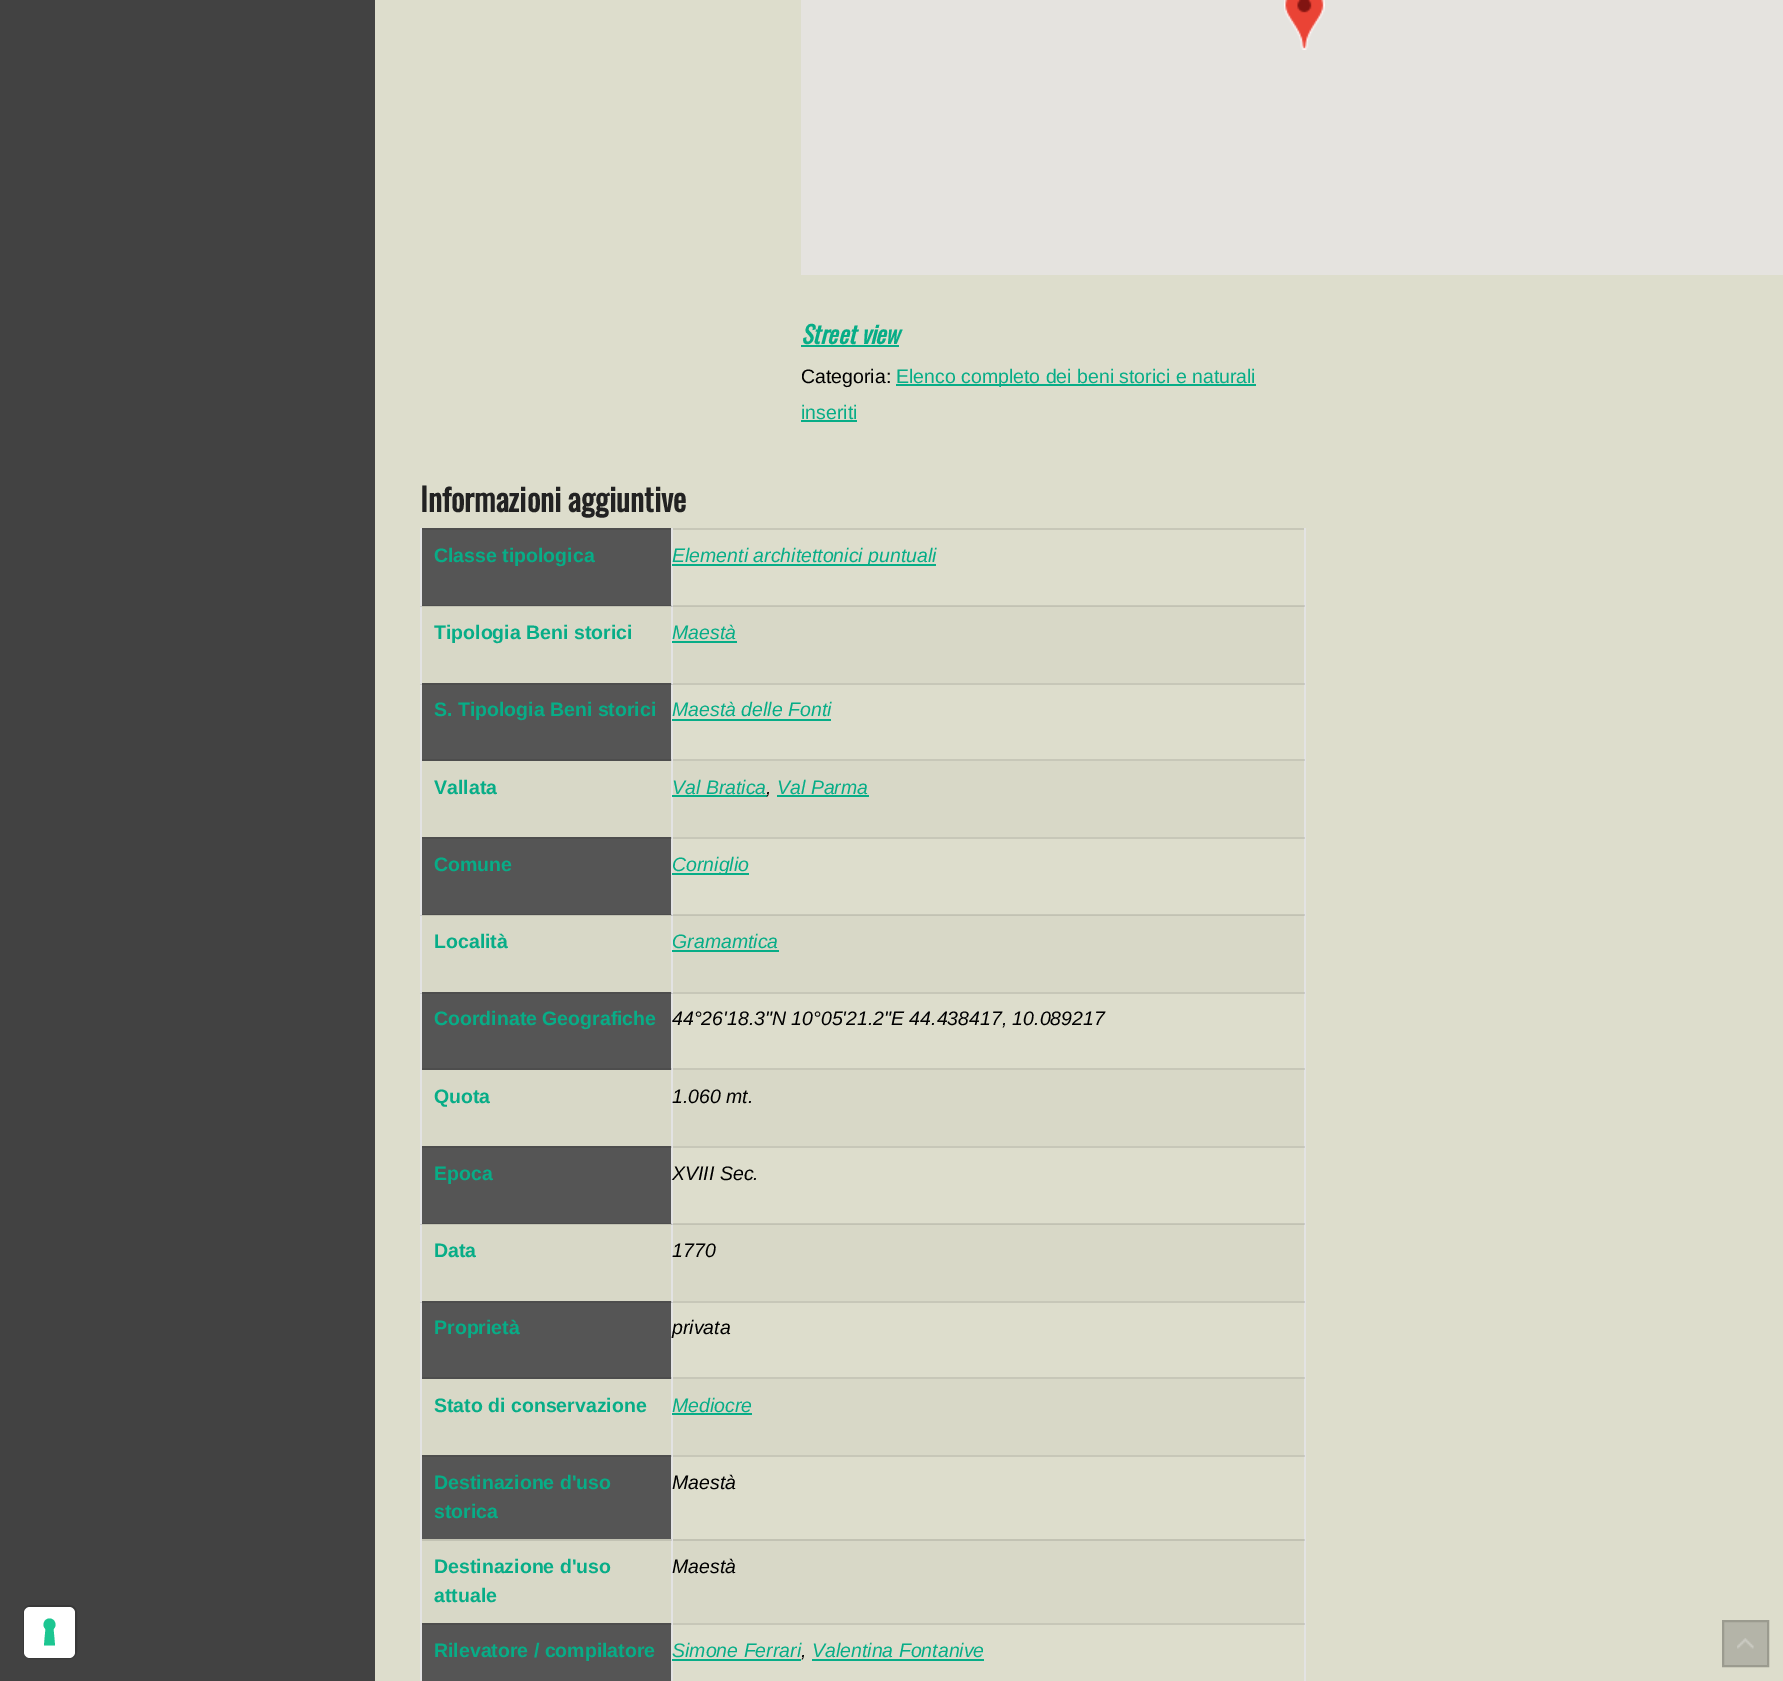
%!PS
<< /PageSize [1783 1681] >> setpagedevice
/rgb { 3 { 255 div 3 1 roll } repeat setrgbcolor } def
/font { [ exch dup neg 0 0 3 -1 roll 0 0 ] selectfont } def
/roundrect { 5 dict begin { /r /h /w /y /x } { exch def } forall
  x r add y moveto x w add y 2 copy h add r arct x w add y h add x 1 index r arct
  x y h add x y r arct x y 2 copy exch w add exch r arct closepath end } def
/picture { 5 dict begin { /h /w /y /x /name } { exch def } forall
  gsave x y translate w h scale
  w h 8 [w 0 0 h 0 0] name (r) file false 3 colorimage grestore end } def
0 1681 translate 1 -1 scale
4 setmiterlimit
221 221 204 rgb
0 0 1783 1681 rectfill
[
  [671 605 634 1 199 199 184]
  [671 683 634 2 199 199 184]
  [671 759 634 2 199 199 184]
  [671 837 634 2 199 199 184]
  [671 914 634 1 199 199 184]
  [671 992 634 2 199 199 184]
  [671 1068 634 2 199 199 184]
  [671 1146 634 2 199 199 184]
  [671 1223 634 1 199 199 184]
  [671 1301 634 2 199 199 184]
  [671 1377 634 2 199 199 184]
  [671 1455 634 2 199 199 184]
  [671 1623 634 2 199 199 184]
  [673 528 632 2 199 199 184]
  [0 0 375 1681 66 66 66]
  [801 0 982 275 229 227 223]
] { aload pop rgb rectfill } forall
(img/1.rgb) 1284 0 41 50 picture
[
  [801 345 98 2 7 173 135]
  [896 384 360 2 7 173 135]
  [801 420 56 2 7 173 135]
  [422 530 249 75 85 85 85]
  [422 605 250 1 77 77 77]
  [422 528 250 2 77 77 77]
  [422 606 883 1 194 194 179]
  [422 915 883 1 194 194 179]
  [422 1224 883 1 194 194 179]
  [422 1539 883 2 194 194 179]
  [1304 1301 2 380 227 227 227]
  [1304 1301 1 2 204 204 204]
  [1304 1223 2 79 227 227 227]
  [1304 1223 1 2 204 204 204]
  [1304 992 2 232 227 227 227]
  [1304 992 1 2 204 204 204]
  [1304 914 2 79 227 227 227]
  [1304 914 1 2 204 204 204]
  [1304 683 2 232 227 227 227]
  [1304 683 1 2 204 204 204]
  [1304 605 2 79 227 227 227]
  [1304 605 1 2 204 204 204]
  [1304 528 2 78 227 227 227]
  [1304 605 1 1 204 204 204]
  [422 683 250 2 77 77 77]
  [422 759 250 2 77 77 77]
  [422 837 250 2 77 77 77]
  [422 914 250 1 77 77 77]
  [422 992 250 2 77 77 77]
  [422 1068 250 2 77 77 77]
  [422 1146 250 2 77 77 77]
  [422 1223 250 1 77 77 77]
  [422 1301 250 2 77 77 77]
  [422 1377 250 2 77 77 77]
  [422 1455 250 2 77 77 77]
  [422 1623 250 2 77 77 77]
  [671 1301 2 380 227 227 227]
  [671 1302 2 1 204 204 204]
  [671 1301 1 2 184 184 184]
  [671 1223 2 79 227 227 227]
  [671 1224 2 1 204 204 204]
  [671 1223 1 2 184 184 184]
  [671 992 2 232 227 227 227]
  [671 993 2 1 204 204 204]
  [671 992 1 2 184 184 184]
  [671 914 2 79 227 227 227]
  [671 915 2 1 204 204 204]
  [671 914 1 2 184 184 184]
  [671 683 2 232 227 227 227]
  [671 684 2 1 204 204 204]
  [671 683 1 2 184 184 184]
  [671 605 2 79 227 227 227]
  [671 606 2 1 204 204 204]
  [671 605 1 2 184 184 184]
  [671 528 2 78 227 227 227]
  [671 605 1 1 204 204 204]
  [672 564 264 2 7 173 135]
  [422 607 249 76 216 216 199]
  [420 528 2 1153 227 227 227]
  [420 606 2 1 204 204 204]
  [673 607 631 76 216 216 199]
  [1304 683 1 1 204 204 204]
  [671 683 1 1 204 204 204]
  [672 641 65 2 7 173 135]
  [422 685 249 74 85 85 85]
  [420 684 2 1 204 204 204]
  [1304 759 1 2 204 204 204]
  [671 759 1 2 204 204 204]
  [672 719 159 2 7 173 135]
  [422 761 249 76 216 216 199]
  [673 761 631 76 216 216 199]
  [1304 837 1 2 204 204 204]
  [671 837 1 2 204 204 204]
  [672 795 95 2 7 173 135]
  [777 795 92 2 7 173 135]
  [422 839 249 75 85 85 85]
  [1304 914 1 1 204 204 204]
  [671 914 1 1 204 204 204]
  [672 873 77 2 7 173 135]
  [422 916 249 76 216 216 199]
  [420 915 2 1 204 204 204]
  [673 916 631 76 216 216 199]
  [1304 992 1 1 204 204 204]
  [671 992 1 1 204 204 204]
  [672 950 107 2 7 173 135]
  [422 994 249 74 85 85 85]
  [420 993 2 1 204 204 204]
  [1304 1068 1 2 204 204 204]
  [671 1068 1 2 204 204 204]
  [422 1070 249 76 216 216 199]
  [673 1070 631 76 216 216 199]
  [1304 1146 1 2 204 204 204]
  [671 1146 1 2 204 204 204]
  [422 1148 249 75 85 85 85]
  [1304 1223 1 1 204 204 204]
  [671 1223 1 1 204 204 204]
  [422 1225 249 76 216 216 199]
  [420 1224 2 1 204 204 204]
  [673 1225 631 76 216 216 199]
  [1304 1301 1 1 204 204 204]
  [671 1301 1 1 204 204 204]
  [422 1303 249 74 85 85 85]
  [420 1302 2 1 204 204 204]
  [1304 1377 1 2 204 204 204]
  [671 1377 1 2 204 204 204]
  [422 1379 249 76 216 216 199]
  [673 1379 631 76 216 216 199]
  [1304 1455 1 2 204 204 204]
  [671 1455 1 2 204 204 204]
  [672 1413 80 2 7 173 135]
  [422 1457 249 82 85 85 85]
  [1304 1539 1 2 204 204 204]
  [671 1539 1 2 204 204 204]
  [422 1541 249 82 216 216 199]
  [673 1541 631 82 216 216 199]
  [1304 1623 1 2 204 204 204]
  [671 1623 1 2 204 204 204]
  [422 1625 249 56 85 85 85]
  [672 1659 129 2 7 173 135]
  [812 1659 172 2 7 173 135]
] { aload pop rgb rectfill } forall
56 56 56 rgb
2 setlinewidth
24 1606 52 52 7 roundrect stroke
255 255 255 rgb
24 1607 51 51 6 roundrect fill
28 198 145 rgb
49.5 1618.5 moveto 55 1618.5 57.5 1625.5 53.5 1629 curveto 55 1645.5 lineto 44 1645.5 lineto 45.5 1629 lineto 41.5 1625.5 44 1618.5 49.5 1618.5 curveto closepath eofill
180 180 168 rgb
1724 1622 43 43 rectfill
(img/2.rgb) 1737 1638 17 11 picture
155 155 143 rgb
1723 1621 45 45 rectstroke
/Oswald-BoldItalic 24 font
7 173 135 rgb
801 344 moveto (Street view) show
/LiberationSans-Regular 19.5 font
0 0 0 rgb
801 383 moveto (Categoria:) show
7 173 135 rgb
896 383 moveto (Elenco completo dei beni storici e naturali) show
801 419 moveto (inseriti) show
/Oswald-Bold 31.5 font
34 34 34 rgb
420 512 moveto (Informazioni aggiuntive) show
/LiberationSans-Bold 19.5 font
7 173 135 rgb
434 562 moveto (Classe tipologica) show
/LiberationSans-Italic 19.5 font
672 562 moveto (Elementi architettonici puntuali) show
/LiberationSans-Bold 19.5 font
434 639 moveto (Tipologia Beni storici) show
/LiberationSans-Italic 19.5 font
672 639 moveto (Maestà) show
/LiberationSans-Bold 19.5 font
434 716 moveto (S. Tipologia Beni storici) show
/LiberationSans-Italic 19.5 font
672 716 moveto (Maestà delle Fonti) show
/LiberationSans-Bold 19.5 font
434 794 moveto (Vallata) show
/LiberationSans-Italic 19.5 font
672 794 moveto (Val Bratica) show
0 0 0 rgb
766 794 moveto (,) show
7 173 135 rgb
777 794 moveto (Val Parma) show
/LiberationSans-Bold 19.5 font
434 871 moveto (Comune) show
/LiberationSans-Italic 19.5 font
672 871 moveto (Corniglio) show
/LiberationSans-Bold 19.5 font
434 948 moveto (Località) show
/LiberationSans-Italic 19.5 font
672 948 moveto (Gramamtica) show
/LiberationSans-Bold 19.5 font
434 1025 moveto (Coordinate Geografiche) show
/LiberationSans-Italic 19.5 font
0 0 0 rgb
672 1025 moveto (44°26'18.3"N 10°05'21.2"E 44.438417, 10.089217) show
/LiberationSans-Bold 19.5 font
7 173 135 rgb
434 1103 moveto (Quota) show
/LiberationSans-Italic 19.5 font
0 0 0 rgb
672 1103 moveto (1.060 mt.) show
/LiberationSans-Bold 19.5 font
7 173 135 rgb
434 1180 moveto (Epoca) show
/LiberationSans-Italic 19.5 font
0 0 0 rgb
672 1180 moveto (XVIII Sec.) show
/LiberationSans-Bold 19.5 font
7 173 135 rgb
434 1257 moveto (Data) show
/LiberationSans-Italic 19.5 font
0 0 0 rgb
672 1257 moveto (1770) show
/LiberationSans-Bold 19.5 font
7 173 135 rgb
434 1334 moveto (Proprietà) show
/LiberationSans-Italic 19.5 font
0 0 0 rgb
672 1334 moveto (privata) show
/LiberationSans-Bold 19.5 font
7 173 135 rgb
434 1412 moveto (Stato di conservazione) show
/LiberationSans-Italic 19.5 font
672 1412 moveto (Mediocre) show
/LiberationSans-Bold 19.5 font
434 1489 moveto (Destinazione d'uso) show
434 1518 moveto (storica) show
/LiberationSans-Italic 19.5 font
0 0 0 rgb
672 1489 moveto (Maestà) show
/LiberationSans-Bold 19.5 font
7 173 135 rgb
434 1573 moveto (Destinazione d'uso) show
434 1602 moveto (attuale) show
/LiberationSans-Italic 19.5 font
0 0 0 rgb
672 1573 moveto (Maestà) show
/LiberationSans-Bold 19.5 font
7 173 135 rgb
434 1657 moveto (Rilevatore / compilatore) show
/LiberationSans-Italic 19.5 font
672 1657 moveto (Simone Ferrari) show
0 0 0 rgb
801 1657 moveto (,) show
7 173 135 rgb
812 1657 moveto (Valentina Fontanive) show
showpage
